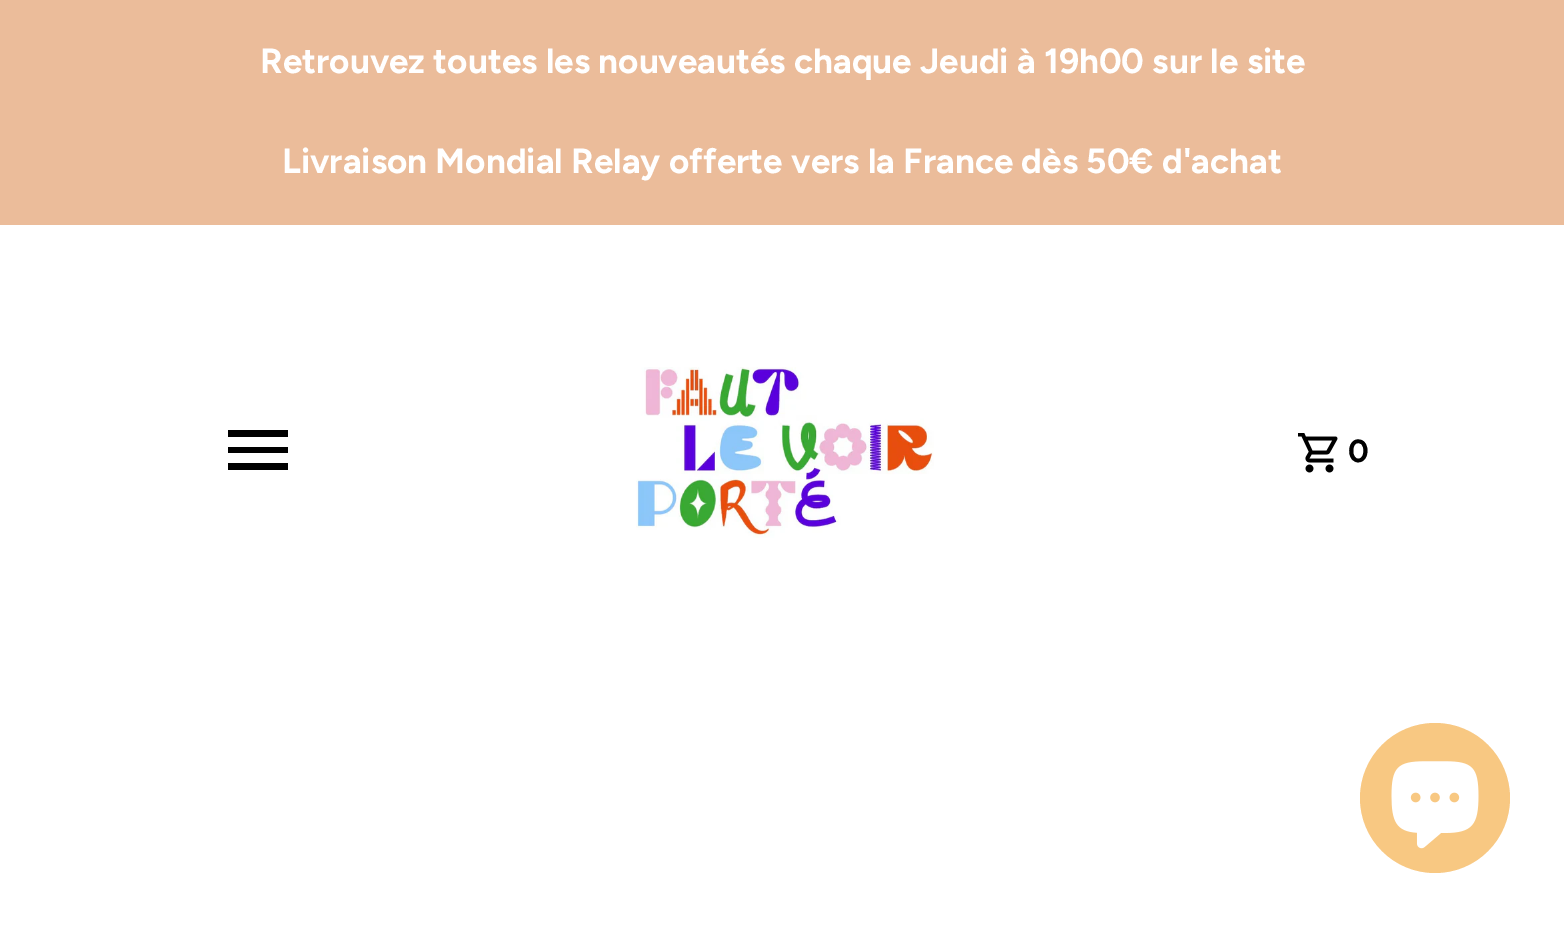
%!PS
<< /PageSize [1564 925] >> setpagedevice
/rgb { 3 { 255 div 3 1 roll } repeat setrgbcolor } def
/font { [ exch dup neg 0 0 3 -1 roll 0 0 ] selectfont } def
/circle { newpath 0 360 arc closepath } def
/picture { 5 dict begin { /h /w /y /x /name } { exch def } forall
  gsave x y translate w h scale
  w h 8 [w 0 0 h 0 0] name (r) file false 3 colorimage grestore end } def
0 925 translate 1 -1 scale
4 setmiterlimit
255 255 255 rgb
0 0 1564 925 rectfill
[
  [0 0 1564 225 235 188 154]
  [228 463 60 7 0 0 0]
  [228 447 60 6 0 0 0]
  [228 430 60 7 0 0 0]
] { aload pop rgb rectfill } forall
(img/1.rgb) 636 367 298 171 picture
(img/2.rgb) 1298 433 40 40 picture
248 200 130 rgb
1435 798 75 circle fill
(img/3.rgb) 1391 761 88 88 picture
/Figtree-Bold 35 font
255 255 255 rgb
260 73 moveto (Retrouvez toutes les nouveautés chaque Jeudi à 19h00 sur le site) show
282 173 moveto (Livraison Mondial Relay offerte vers la France dès 50€ d'achat) show
/Figtree-Bold 32 font
0 0 0 rgb
1348 462 moveto 2 0 (0) ashow
showpage
